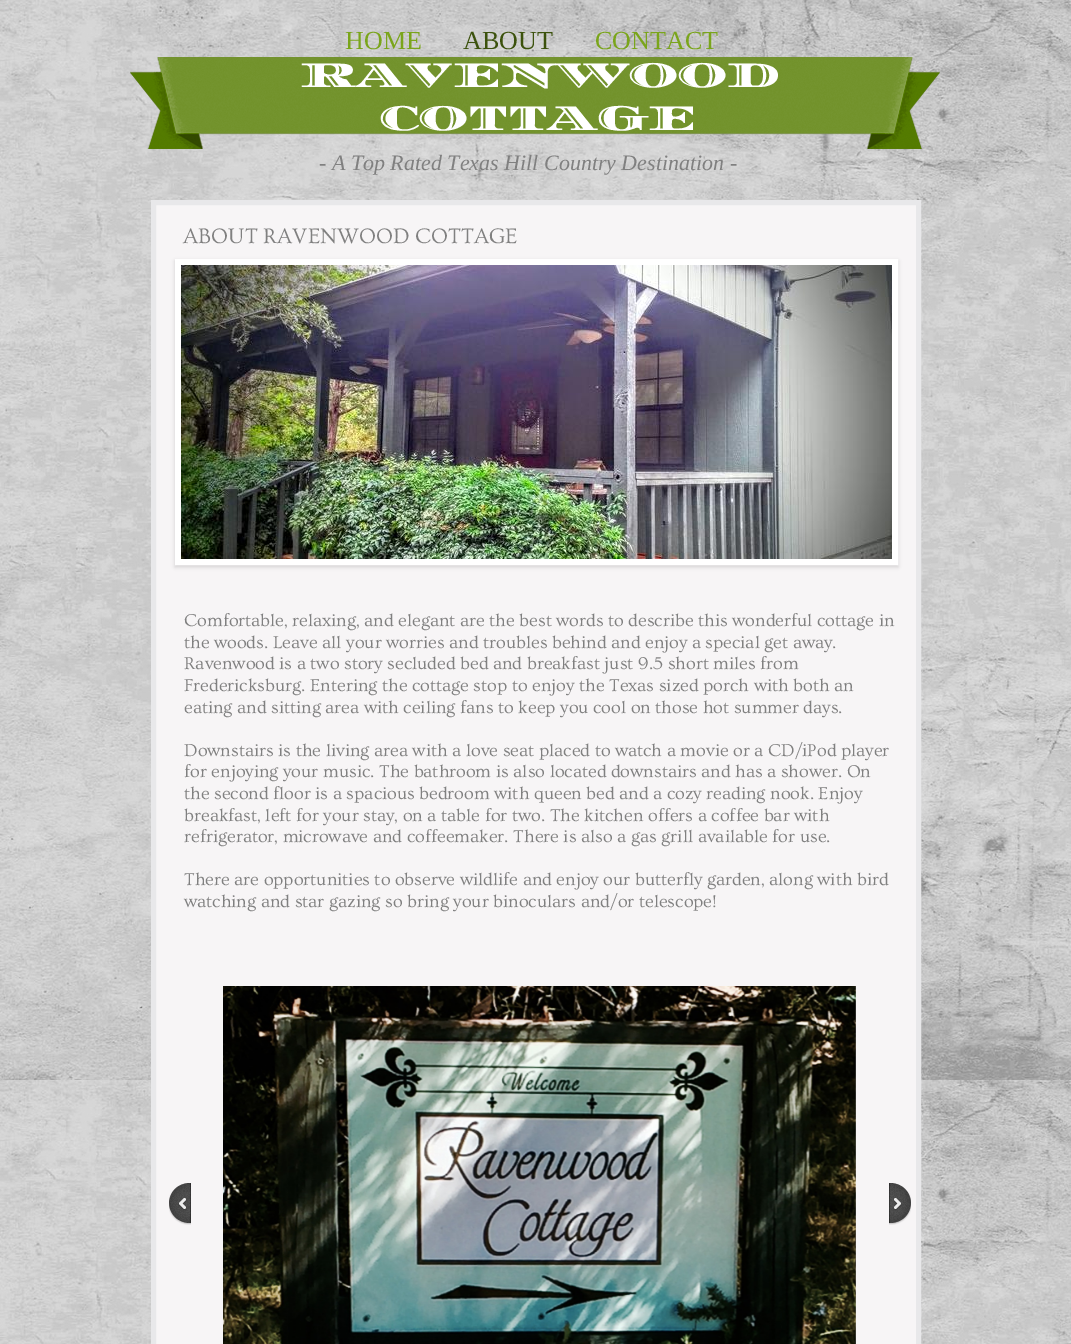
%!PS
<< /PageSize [1071 1344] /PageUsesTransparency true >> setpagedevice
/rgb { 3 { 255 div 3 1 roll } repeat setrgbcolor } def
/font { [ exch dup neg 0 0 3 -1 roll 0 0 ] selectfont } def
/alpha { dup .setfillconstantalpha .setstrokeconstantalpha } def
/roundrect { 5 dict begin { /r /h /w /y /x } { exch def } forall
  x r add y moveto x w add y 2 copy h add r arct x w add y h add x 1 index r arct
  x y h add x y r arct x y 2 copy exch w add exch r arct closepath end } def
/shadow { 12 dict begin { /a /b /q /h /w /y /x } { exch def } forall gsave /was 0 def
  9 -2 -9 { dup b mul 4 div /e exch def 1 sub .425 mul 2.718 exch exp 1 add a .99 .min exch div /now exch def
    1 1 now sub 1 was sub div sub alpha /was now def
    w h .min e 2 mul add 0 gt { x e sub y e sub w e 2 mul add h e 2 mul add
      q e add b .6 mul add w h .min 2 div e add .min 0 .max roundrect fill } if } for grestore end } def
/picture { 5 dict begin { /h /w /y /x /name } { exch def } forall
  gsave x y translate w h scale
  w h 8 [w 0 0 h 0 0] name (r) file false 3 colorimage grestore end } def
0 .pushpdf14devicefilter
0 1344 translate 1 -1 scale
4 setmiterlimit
255 255 255 rgb
0 0 1071 1344 rectfill
(img/1.rgb) 0 0 1071 1344 picture
247 245 246 rgb
153.5 202.5 moveto 918.5 202.5 lineto 918.5 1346.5 lineto 153.5 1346.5 lineto closepath gsave fill grestore
232 232 234 rgb
5 setlinewidth
stroke
(img/2.rgb) 130 57 810 92 picture
0 0 0 rgb
175 261 723 306 0 2 0.15 shadow
255 255 255 rgb
6 setlinewidth
178 262 717 300 rectstroke
(img/3.rgb) 181 265 711 294 picture
(img/4.rgb) 169 1183 22 42 picture
(img/5.rgb) 223 986 633 358 picture
(img/6.rgb) 889 1183 22 42 picture
/LiberationSerif-Regular 26 font
122 165 27 rgb
345 49 moveto (HOME) show
60 82 13 rgb
463 49 moveto (ABOUT) show
122 165 27 rgb
595 49 moveto (CONTACT) show
/Diplomata-Regular 36 font
255 255 255 rgb
299 87 moveto (RAVENWOOD) show
380 130 moveto (COTTAGE) show
/LiberationSerif-Italic 22 font
128 128 128 rgb
319 170 moveto (- A Top Rated Texas Hill Country Destination -) show
/Ovo-Regular 22 font
183 243 moveto (ABOUT RAVENWOOD COTTAGE) show
/Ovo-Regular 18 font
[
  [(Comfortable, relaxing, and elegant are the best words to describe this wonderful cottage in) 184 626]
  [(the woods. Leave all your worries and troubles behind and enjoy a special get away.) 184 648]
  [(Ravenwood is a two story secluded bed and breakfast just 9.5 short miles from) 184 669]
  [(Fredericksburg. Entering the cottage stop to enjoy the Texas sized porch with both an) 184 691]
  [(eating and sitting area with ceiling fans to keep you cool on those hot summer days.) 184 713]
  [(Downstairs is the living area with a love seat placed to watch a movie or a CD/iPod player) 184 756]
  [(for enjoying your music. The bathroom is also located downstairs and has a shower. On) 184 777]
  [(the second floor is a spacious bedroom with queen bed and a cozy reading nook. Enjoy) 184 799]
  [(breakfast, left for your stay, on a table for two. The kitchen offers a coffee bar with) 184 821]
  [(refrigerator, microwave and coffeemaker. There is also a gas grill available for use.) 184 842]
  [(There are opportunities to observe wildlife and enjoy our butterfly garden, along with bird) 184 885]
  [(watching and star gazing so bring your binoculars and/or telescope!) 184 907]
] { aload pop moveto show } forall
.poppdf14devicefilter showpage
